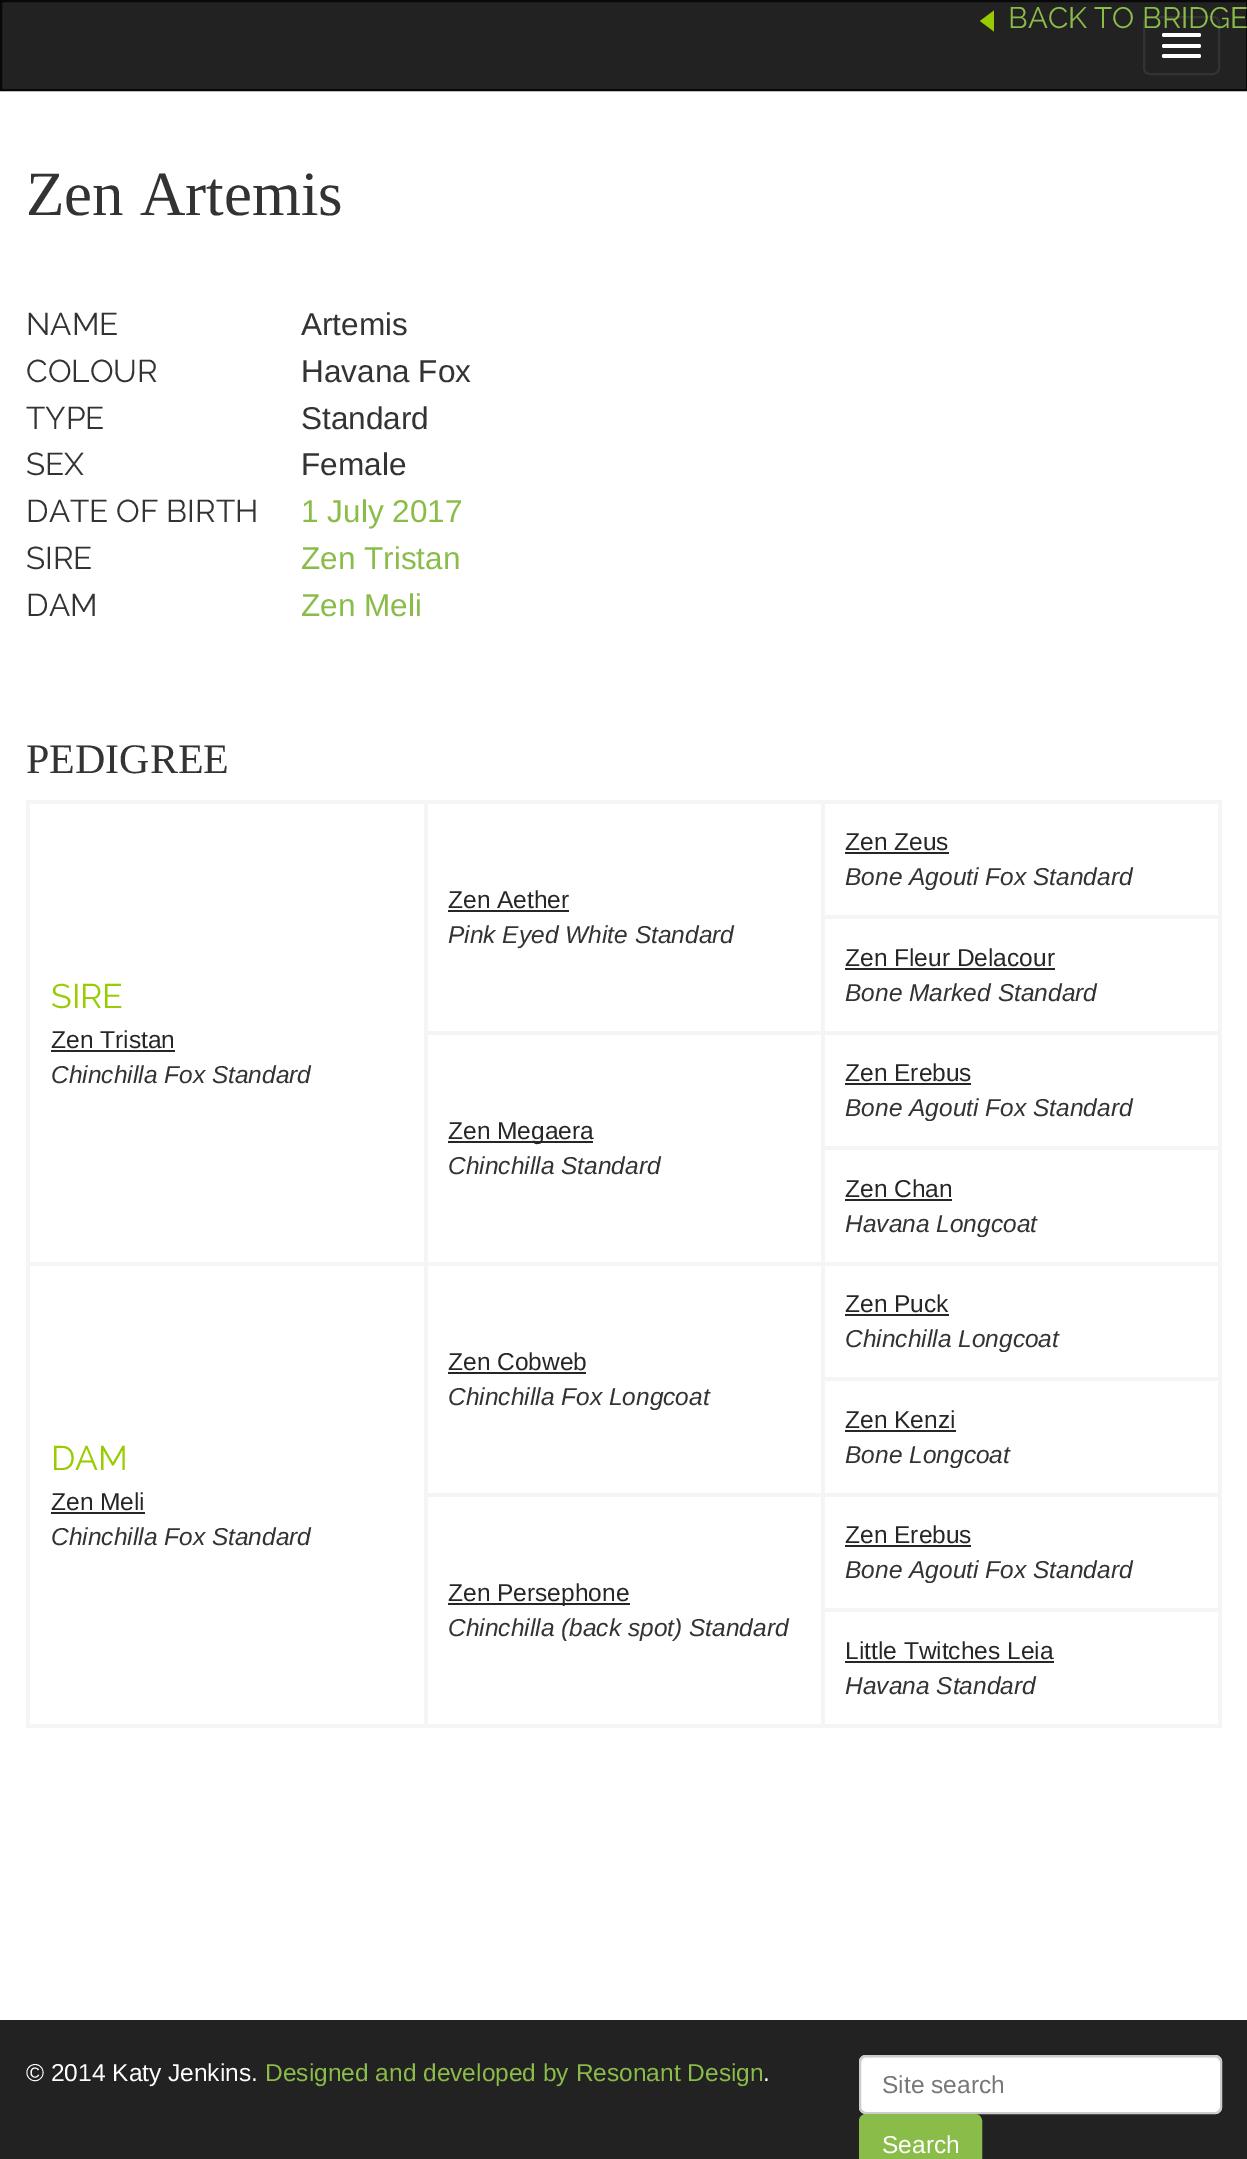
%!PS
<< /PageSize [1247 2159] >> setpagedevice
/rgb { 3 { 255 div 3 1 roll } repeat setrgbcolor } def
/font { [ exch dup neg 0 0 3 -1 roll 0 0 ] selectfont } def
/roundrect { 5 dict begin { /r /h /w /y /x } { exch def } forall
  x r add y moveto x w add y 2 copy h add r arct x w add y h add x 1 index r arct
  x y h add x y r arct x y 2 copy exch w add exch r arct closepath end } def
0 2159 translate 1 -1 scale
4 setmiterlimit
255 255 255 rgb
0 0 1247 2159 rectfill
34 34 34 rgb
1 1 moveto 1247 1 lineto 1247 90 lineto 1 90 lineto closepath gsave fill grestore
8 8 8 rgb
2 setlinewidth
stroke
51 51 51 rgb
1144 17 75 57 6 roundrect stroke
255 255 255 rgb
1162 33 39 4 2 roundrect fill
1162 44 39 4 2 roundrect fill
1162 54 39 4 2 roundrect fill
153 204 0 rgb
994 10.5 moveto 994 31.5 lineto 980 21 lineto closepath fill
[
  [821 800 401 4 245 245 245]
  [821 915 401 4 245 245 245]
  [821 1031 401 4 245 245 245]
  [821 1146 401 4 245 245 245]
  [821 1262 401 4 245 245 245]
  [821 1377 401 4 245 245 245]
  [821 1493 401 4 245 245 245]
  [821 1608 401 4 245 245 245]
  [1218 1608 4 119 245 245 245]
  [1218 1493 4 119 245 245 245]
  [1218 1377 4 119 245 245 245]
  [1218 1262 4 119 245 245 245]
  [1218 1146 4 119 245 245 245]
  [1218 1031 4 119 245 245 245]
  [1218 915 4 119 245 245 245]
  [1218 800 4 119 245 245 245]
  [821 1724 401 4 245 245 245]
  [821 1608 4 119 245 245 245]
  [821 1493 4 119 245 245 245]
  [424 1493 400 4 245 245 245]
  [821 1377 4 119 245 245 245]
  [821 1262 4 119 245 245 245]
  [424 1262 400 4 245 245 245]
  [821 1146 4 119 245 245 245]
  [821 1031 4 119 245 245 245]
  [424 1031 400 4 245 245 245]
  [821 915 4 119 245 245 245]
  [821 800 4 119 245 245 245]
  [845 852 104 2 38 38 38]
  [424 800 400 4 245 245 245]
  [424 1724 400 4 245 245 245]
  [424 1493 4 234 245 245 245]
  [424 1262 4 234 245 245 245]
  [26 1262 401 4 245 245 245]
  [424 1031 4 234 245 245 245]
  [424 800 4 234 245 245 245]
  [448 910 121 2 38 38 38]
  [26 800 401 4 245 245 245]
  [26 1724 401 4 245 245 245]
  [26 1262 4 465 245 245 245]
  [26 800 4 465 245 245 245]
  [51 1050 124 2 38 38 38]
  [845 968 210 2 38 38 38]
  [845 1083 126 2 38 38 38]
  [448 1141 145 2 38 38 38]
  [845 1199 107 2 38 38 38]
  [845 1314 104 2 38 38 38]
  [448 1372 138 2 38 38 38]
  [51 1512 94 2 38 38 38]
  [845 1430 111 2 38 38 38]
  [845 1545 126 2 38 38 38]
  [448 1603 182 2 38 38 38]
  [845 1661 209 2 38 38 38]
  [0 2020 1247 139 34 34 34]
] { aload pop rgb rectfill } forall
255 255 255 rgb
859 2055 363 59 7 roundrect fill
236 236 236 rgb
866 2058 moveto 1214 2058 lineto 1217 2058 1220 2060 1220 2063 curveto 1220 2060 1219 2056 1215 2056 curveto 866 2056 lineto 862 2056 861 2060 861 2063 curveto 861 2060 863 2058 866 2058 curveto closepath fill
204 204 204 rgb
860 2056 361 57 6 roundrect stroke
138 188 73 rgb
860 2115 121 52 6 roundrect gsave fill grestore
stroke
/Raleway-Regular 29.5 font
1008 28 moveto (BACK TO BRIDGE) show
/LiberationSerif-Regular 63 font
51 51 51 rgb
26 215 moveto (Zen Artemis) show
/Raleway-Regular 31.5 font
26 335 moveto (NAME) show
/LiberationSans-Regular 31.5 font
301 335 moveto (Artemis) show
/Raleway-Regular 31.5 font
26 382 moveto (COLOUR) show
/LiberationSans-Regular 31.5 font
301 382 moveto (Havana Fox) show
/Raleway-Regular 31.5 font
26 429 moveto (TYPE) show
/LiberationSans-Regular 31.5 font
301 429 moveto (Standard) show
/Raleway-Regular 31.5 font
26 475 moveto (SEX) show
/LiberationSans-Regular 31.5 font
301 475 moveto (Female) show
/Raleway-Regular 31.5 font
26 522 moveto (DATE OF BIRTH) show
/LiberationSans-Regular 31.5 font
138 188 73 rgb
301 522 moveto (1 July 2017) show
/Raleway-Regular 31.5 font
51 51 51 rgb
26 569 moveto (SIRE) show
/LiberationSans-Regular 31.5 font
138 188 73 rgb
301 569 moveto (Zen Tristan) show
/Raleway-Regular 31.5 font
51 51 51 rgb
26 616 moveto (DAM) show
/LiberationSans-Regular 31.5 font
138 188 73 rgb
301 616 moveto (Zen Meli) show
/LiberationSerif-Regular 42 font
51 51 51 rgb
26 773 moveto (PEDIGREE) show
/LiberationSans-Regular 24.5 font
38 38 38 rgb
845 850 moveto (Zen Zeus) show
/LiberationSans-Italic 24.5 font
51 51 51 rgb
845 885 moveto (Bone Agouti Fox Standard) show
/LiberationSans-Regular 24.5 font
38 38 38 rgb
448 908 moveto (Zen Aether) show
/LiberationSans-Italic 24.5 font
51 51 51 rgb
448 943 moveto (Pink Eyed White Standard) show
/Raleway-Regular 34 font
153 204 0 rgb
51 1008 moveto (SIRE) show
/LiberationSans-Regular 24.5 font
38 38 38 rgb
51 1048 moveto (Zen Tristan) show
/LiberationSans-Italic 24.5 font
51 51 51 rgb
51 1083 moveto (Chinchilla Fox Standard) show
/LiberationSans-Regular 24.5 font
38 38 38 rgb
845 966 moveto (Zen Fleur Delacour) show
/LiberationSans-Italic 24.5 font
51 51 51 rgb
845 1001 moveto (Bone Marked Standard) show
/LiberationSans-Regular 24.5 font
38 38 38 rgb
845 1081 moveto (Zen Erebus) show
/LiberationSans-Italic 24.5 font
51 51 51 rgb
845 1116 moveto (Bone Agouti Fox Standard) show
/LiberationSans-Regular 24.5 font
38 38 38 rgb
448 1139 moveto (Zen Megaera) show
/LiberationSans-Italic 24.5 font
51 51 51 rgb
448 1174 moveto (Chinchilla Standard) show
/LiberationSans-Regular 24.5 font
38 38 38 rgb
845 1197 moveto (Zen Chan) show
/LiberationSans-Italic 24.5 font
51 51 51 rgb
845 1232 moveto (Havana Longcoat) show
/LiberationSans-Regular 24.5 font
38 38 38 rgb
845 1312 moveto (Zen Puck) show
/LiberationSans-Italic 24.5 font
51 51 51 rgb
845 1347 moveto (Chinchilla Longcoat) show
/LiberationSans-Regular 24.5 font
38 38 38 rgb
448 1370 moveto (Zen Cobweb) show
/LiberationSans-Italic 24.5 font
51 51 51 rgb
448 1405 moveto (Chinchilla Fox Longcoat) show
/Raleway-Regular 34 font
153 204 0 rgb
51 1470 moveto (DAM) show
/LiberationSans-Regular 24.5 font
38 38 38 rgb
51 1510 moveto (Zen Meli) show
/LiberationSans-Italic 24.5 font
51 51 51 rgb
51 1545 moveto (Chinchilla Fox Standard) show
/LiberationSans-Regular 24.5 font
38 38 38 rgb
845 1428 moveto (Zen Kenzi) show
/LiberationSans-Italic 24.5 font
51 51 51 rgb
845 1463 moveto (Bone Longcoat) show
/LiberationSans-Regular 24.5 font
38 38 38 rgb
845 1543 moveto (Zen Erebus) show
/LiberationSans-Italic 24.5 font
51 51 51 rgb
845 1578 moveto (Bone Agouti Fox Standard) show
/LiberationSans-Regular 24.5 font
38 38 38 rgb
448 1601 moveto (Zen Persephone) show
/LiberationSans-Italic 24.5 font
51 51 51 rgb
448 1636 moveto (Chinchilla \(back spot\) Standard) show
/LiberationSans-Regular 24.5 font
38 38 38 rgb
845 1659 moveto (Little Twitches Leia) show
/LiberationSans-Italic 24.5 font
51 51 51 rgb
845 1694 moveto (Havana Standard) show
/LiberationSans-Regular 24.5 font
255 255 255 rgb
26 2081 moveto (© 2014 Katy Jenkins.) show
138 188 73 rgb
265 2081 moveto (Designed and developed by Resonant Design) show
255 255 255 rgb
763 2081 moveto (.) show
119 119 119 rgb
882 2093 moveto (Site search) show
255 255 255 rgb
882 2153 moveto (Search) show
showpage
